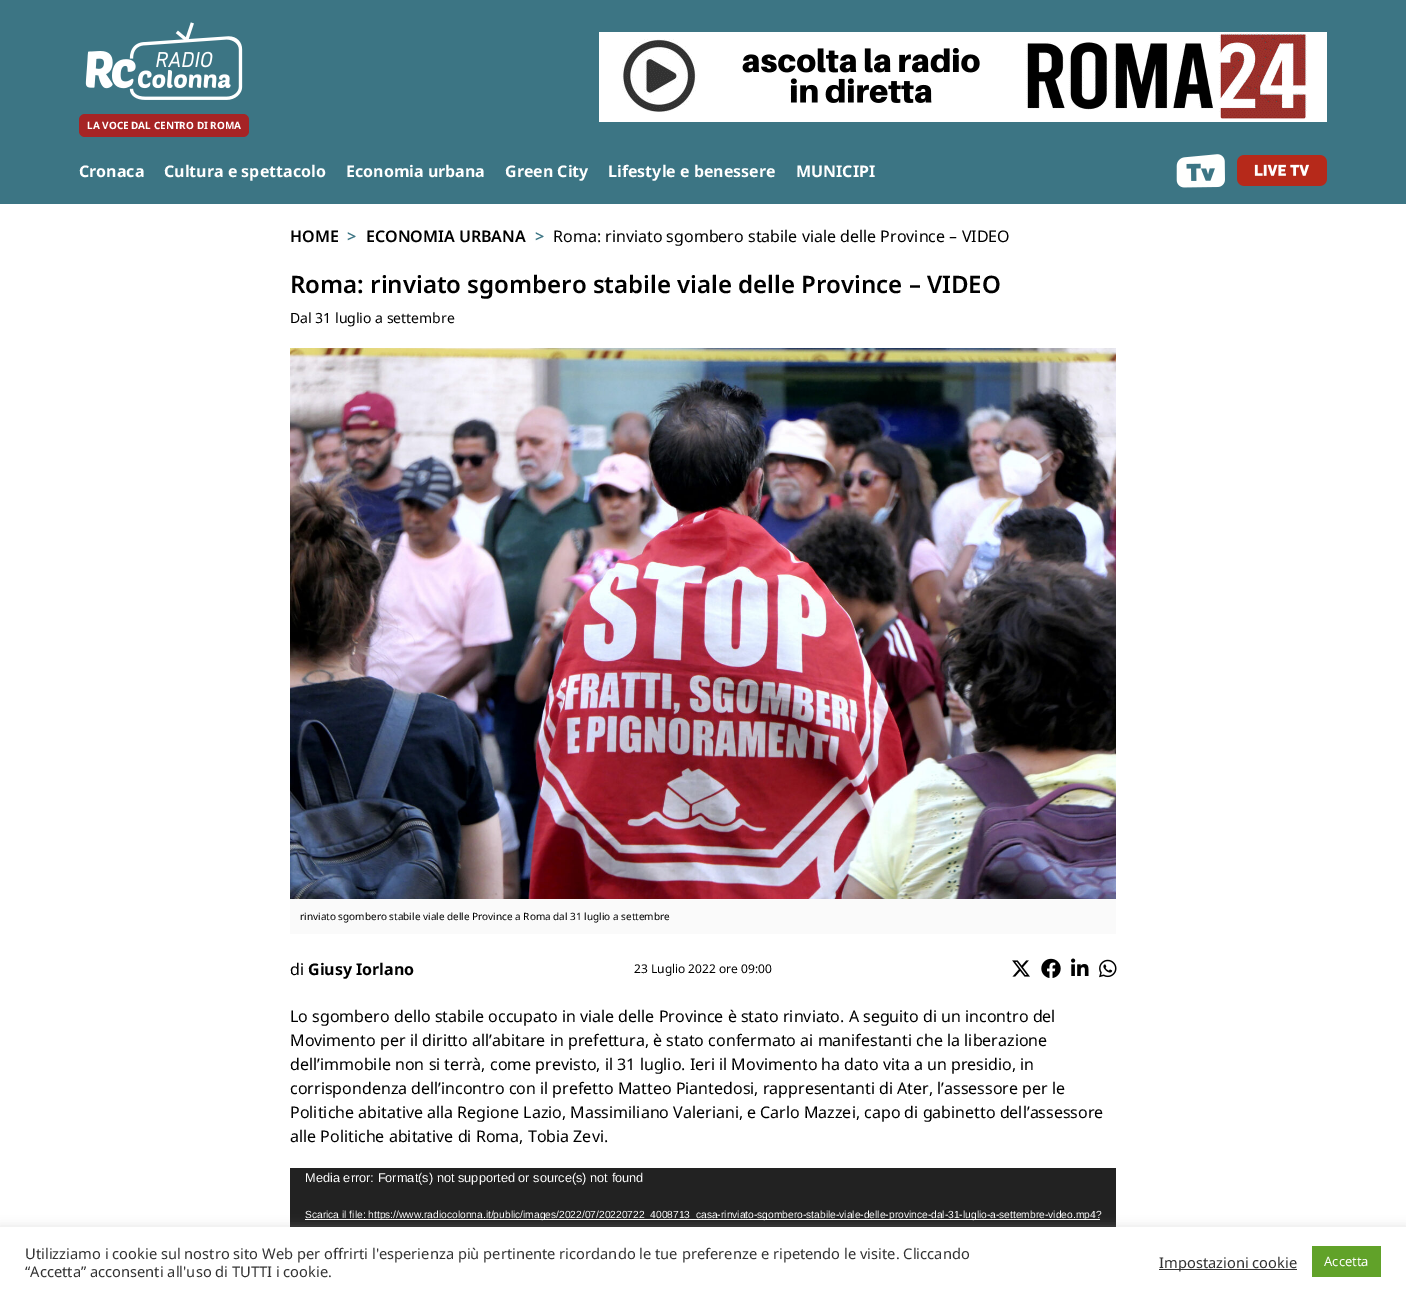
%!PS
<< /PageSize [1406 1296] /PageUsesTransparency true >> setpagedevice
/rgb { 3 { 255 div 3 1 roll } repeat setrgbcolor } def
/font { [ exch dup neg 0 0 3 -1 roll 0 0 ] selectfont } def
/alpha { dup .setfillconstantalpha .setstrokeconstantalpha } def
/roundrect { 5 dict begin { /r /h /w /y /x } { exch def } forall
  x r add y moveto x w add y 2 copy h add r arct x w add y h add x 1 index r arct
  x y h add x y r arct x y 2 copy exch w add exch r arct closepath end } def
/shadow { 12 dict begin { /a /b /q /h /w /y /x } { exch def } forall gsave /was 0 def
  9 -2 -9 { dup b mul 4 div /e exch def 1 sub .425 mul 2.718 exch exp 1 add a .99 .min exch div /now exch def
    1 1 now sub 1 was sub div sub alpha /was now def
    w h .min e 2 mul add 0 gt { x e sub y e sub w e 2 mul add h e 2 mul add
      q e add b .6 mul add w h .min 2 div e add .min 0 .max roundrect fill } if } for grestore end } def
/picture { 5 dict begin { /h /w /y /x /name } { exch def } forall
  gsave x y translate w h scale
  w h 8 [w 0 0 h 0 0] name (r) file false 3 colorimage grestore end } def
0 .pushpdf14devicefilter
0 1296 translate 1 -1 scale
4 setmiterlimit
255 255 255 rgb
0 0 1406 1296 rectfill
60 117 132 rgb
0 0 1406 204 rectfill
(img/1.rgb) 599 32 728 90 picture
(img/2.rgb) 85 22 158 78 picture
166 36 37 rgb
79 114 170 23 6 roundrect fill
(img/3.rgb) 1176 154 49 34 picture
(img/4.rgb) 1237 155 90 31 picture
(img/5.rgb) 290 348 826 551 picture
250 250 250 rgb
290 899 826 35 rectfill
(img/6.rgb) 1012 960 18 17 picture
(img/7.rgb) 1041 958 20 20 picture
(img/8.rgb) 1071 958 18 18 picture
(img/9.rgb) 1099 959 18 19 picture
34 34 34 rgb
290 1168 826 59 rectfill
255 255 255 rgb
305 1219 795 1 rectfill
172 171 171 rgb
0 1226 1406 69 0 5 0.3 shadow
[
  [0 1227 1406 69 255 255 255]
  [1159 1269 138 1 51 51 51]
  [1312 1246 69 31 97 162 41]
] { aload pop rgb rectfill } forall
/NotoSans-Bold 10 font
255 255 255 rgb
87 129 moveto (LA VOCE DAL CENTRO DI ROMA) show
/NotoSans-Bold 16 font
[
  [(Cronaca) 79 177]
  [(Cultura e spettacolo) 164 177]
  [(Economia urbana) 346 177]
  [(Green City) 505 177]
  [(Lifestyle e benessere) 608 177]
  [(MUNICIPI) 796 177]
] { aload pop moveto show } forall
/NotoSans-SemiBold 16 font
0 0 0 rgb
290 242 moveto (HOME) show
60 117 132 rgb
347 242 moveto (>) show
0 0 0 rgb
366 242 moveto (ECONOMIA URBANA) show
60 117 132 rgb
535 242 moveto (>) show
/NotoSans-Regular 16 font
0 0 0 rgb
553 242 moveto (Roma: rinviato sgombero stabile viale delle Province – VIDEO) show
/NotoSans-SemiBold 24 font
290 293 moveto (Roma: rinviato sgombero stabile viale delle Province – VIDEO) show
/NotoSans-Regular 14 font
290 323 moveto (Dal 31 luglio a settembre) show
/NotoSans-Regular 10 font
300 920 moveto (rinviato sgombero stabile viale delle Province a Roma dal 31 luglio a settembre) show
/NotoSans-Regular 16 font
290 975 moveto (di) show
/NotoSans-Bold 16 font
308 975 moveto (Giusy Iorlano) show
/NotoSans-Regular 12 font
634 973 moveto (23 Luglio 2022 ore 09:00) show
/NotoSans-Regular 16 font
[
  [(Lo sgombero dello stabile occupato in viale delle Province è stato rinviato. A seguito di un incontro del) 290 1022]
  [(Movimento per il diritto all’abitare in prefettura, è stato confermato ai manifestanti che la liberazione) 290 1046]
  [(dell’immobile non si terrà, come previsto, il 31 luglio. Ieri il Movimento ha dato vita a un presidio, in) 290 1070]
  [(corrispondenza dell’incontro con il prefetto Matteo Piantedosi, rappresentanti di Ater, l’assessore per le) 290 1094]
  [(Politiche abitative alla Regione Lazio, Massimiliano Valeriani, e Carlo Mazzei, capo di gabinetto dell’assessore) 290 1118]
  [(alle Politiche abitative di Roma, Tobia Zevi.) 290 1142]
] { aload pop moveto show } forall
/LiberationSans-Regular 12.8 font
255 255 255 rgb
305 1182 moveto (Media error: Format\(s\) not supported or source\(s\) not found) show
/LiberationSans-Regular 10.25 font
305 1218 moveto (Scarica il file: https://www.radiocolonna.it/public/images/2022/07/20220722_4008713_casa-rinviato-sgombero-stabile-viale-delle-province-dal-31-luglio-a-settembre-video.mp4?) show
/NotoSans-Regular 14.67 font
51 51 51 rgb
[
  [(Utilizziamo i cookie sul nostro sito Web per offrirti l'esperienza più pertinente ricordando le tue preferenze e ripetendo le visite. Cliccando) 25 1259]
  [(“Accetta” acconsenti all'uso di TUTTI i cookie.) 25 1277]
  [(Impostazioni cookie) 1159 1268]
] { aload pop moveto show } forall
/NotoSans-Regular 13 font
255 255 255 rgb
1324 1266 moveto (Accetta) show
.poppdf14devicefilter showpage
